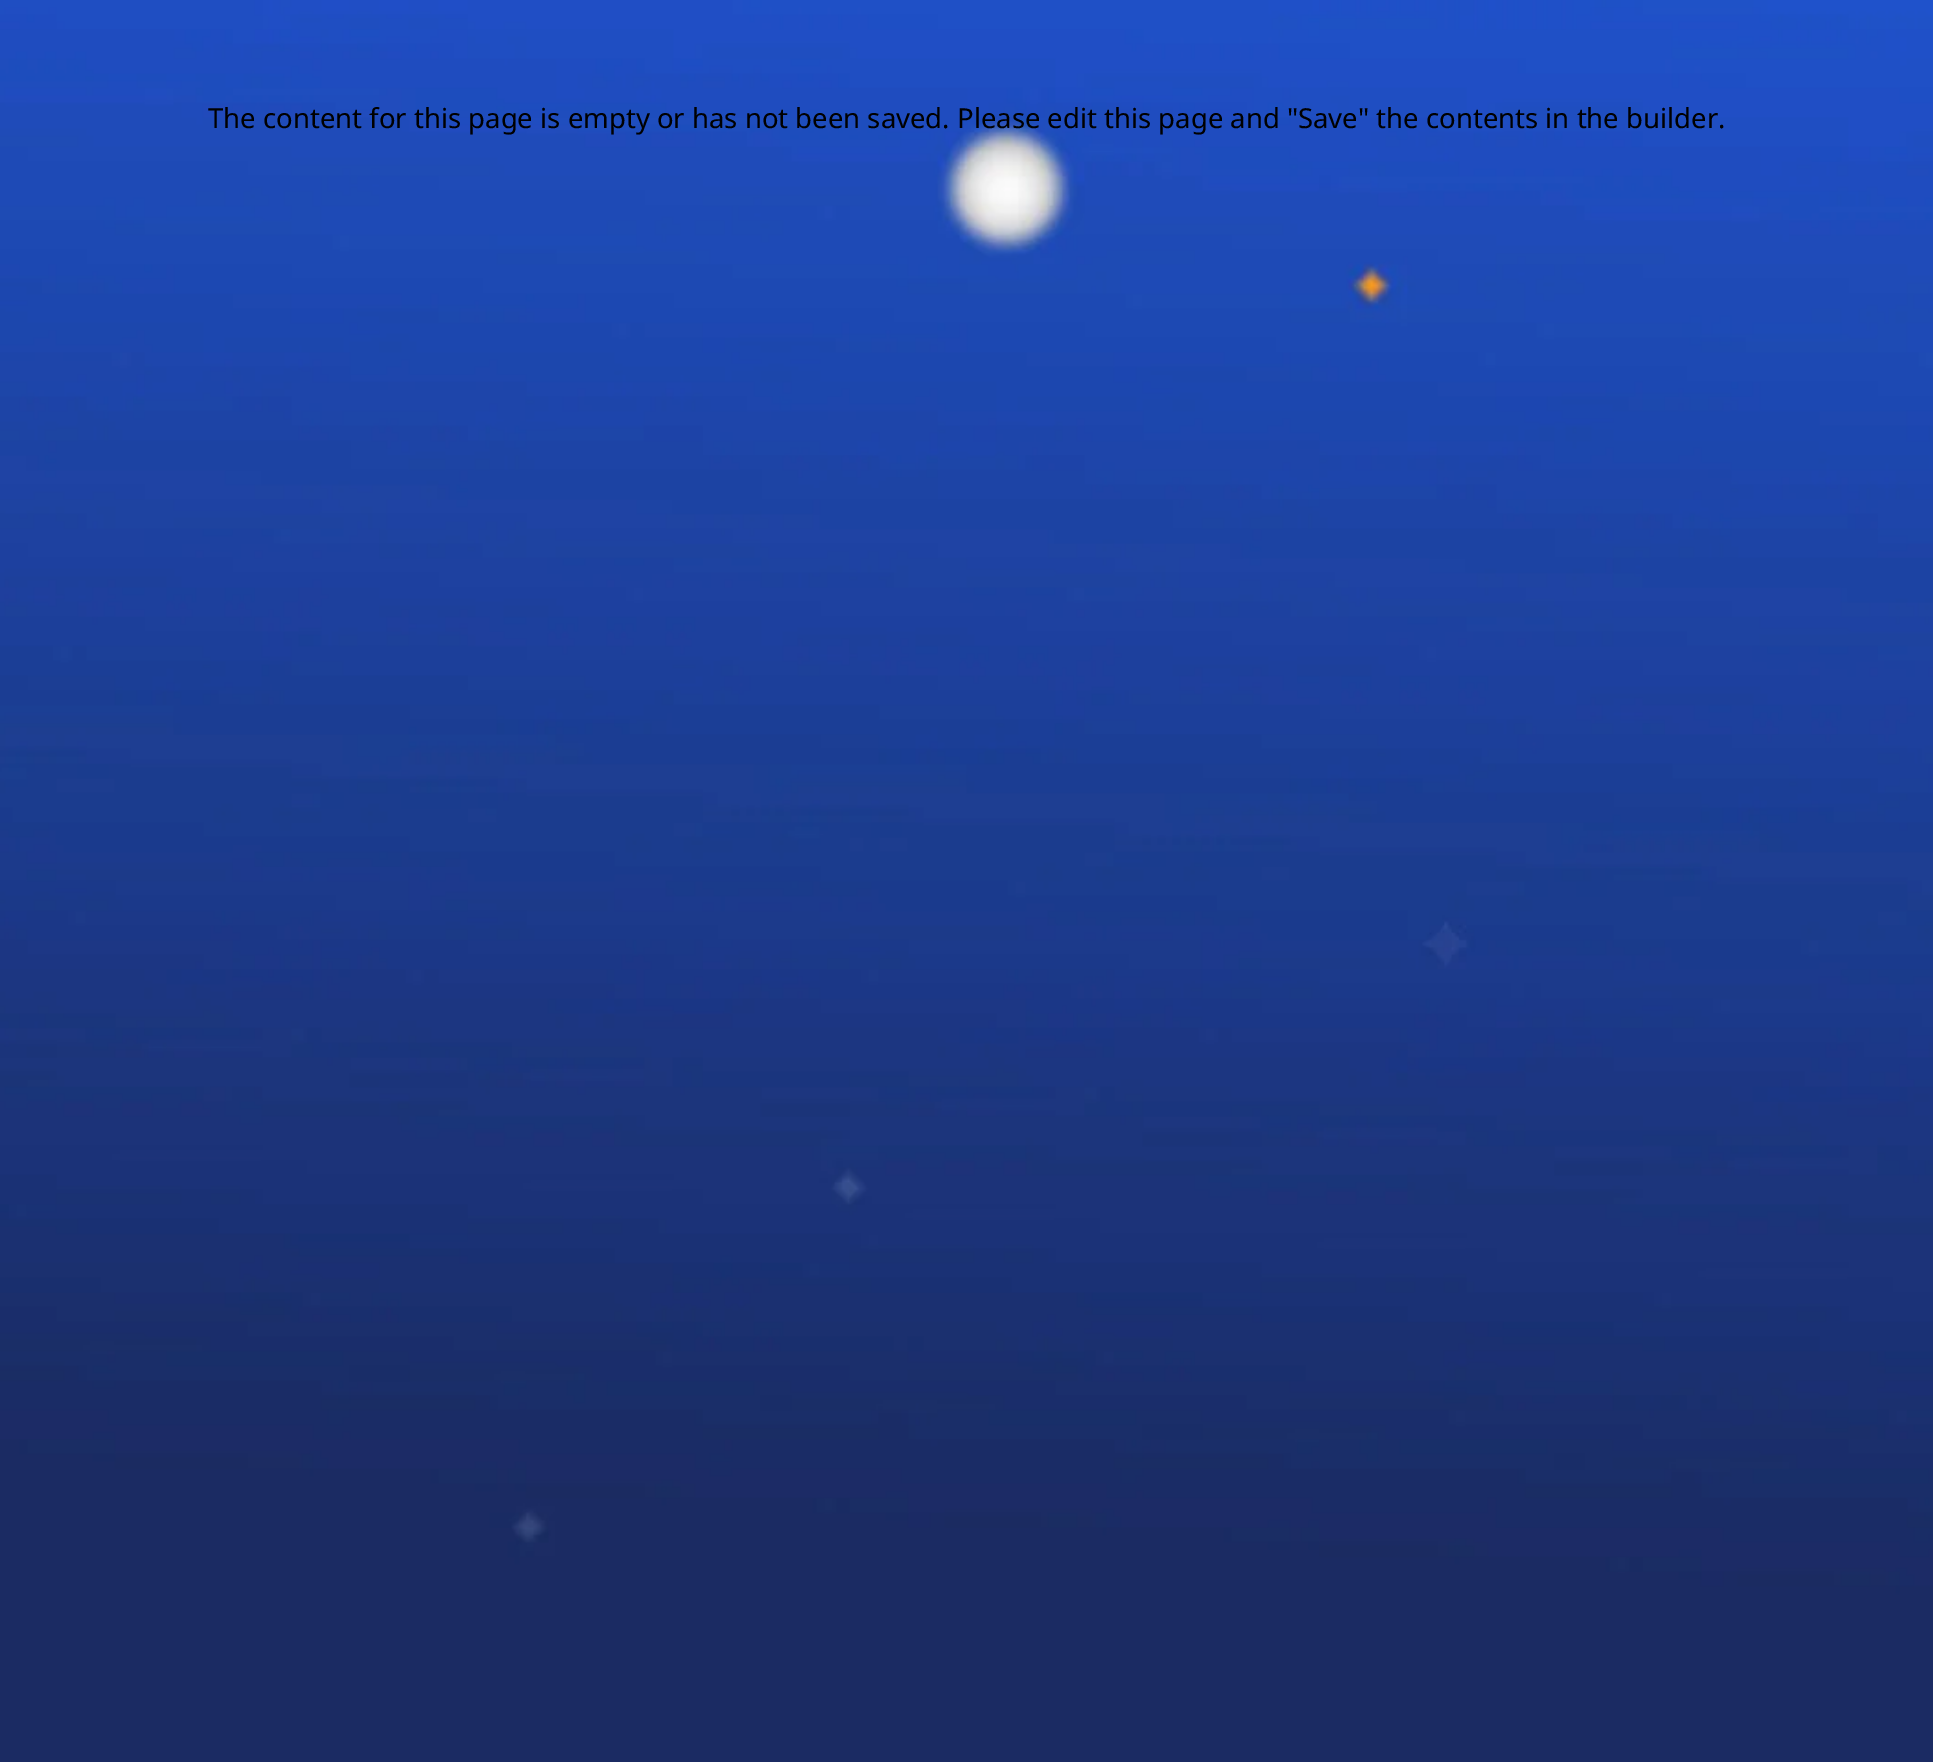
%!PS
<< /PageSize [1933 1762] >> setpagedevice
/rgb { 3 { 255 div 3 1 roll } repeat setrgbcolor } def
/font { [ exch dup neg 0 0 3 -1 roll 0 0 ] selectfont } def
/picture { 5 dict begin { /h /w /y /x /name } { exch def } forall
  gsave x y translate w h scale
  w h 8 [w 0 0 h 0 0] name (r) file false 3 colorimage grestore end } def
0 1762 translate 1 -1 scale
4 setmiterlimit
255 255 255 rgb
0 0 1933 1762 rectfill
(img/1.rgb) 0 0 1933 1762 picture
/NotoSans-Regular 27.5 font
0 0 0 rgb
208 128 moveto (The content for this page is empty or has not been saved. Please edit this page and "Save" the contents in the builder.) show
showpage
